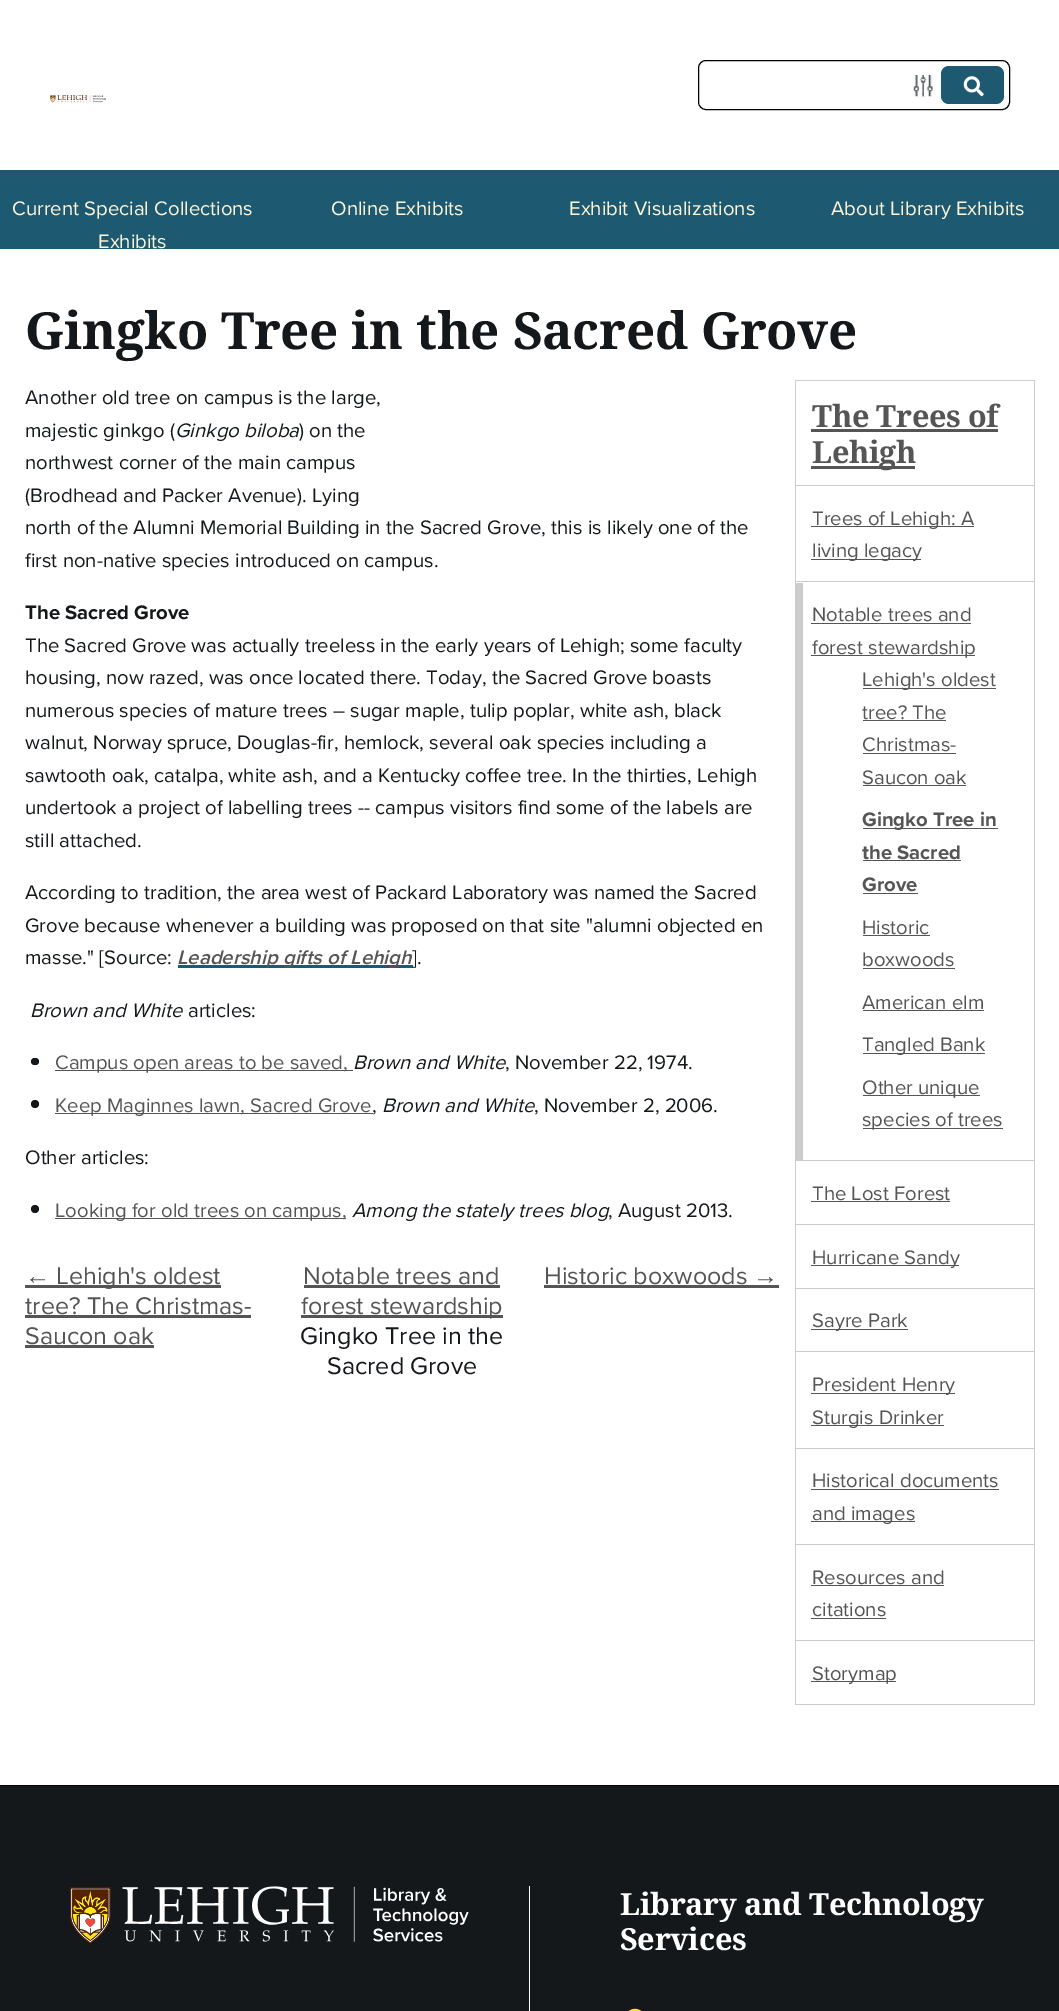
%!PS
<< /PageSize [1059 2011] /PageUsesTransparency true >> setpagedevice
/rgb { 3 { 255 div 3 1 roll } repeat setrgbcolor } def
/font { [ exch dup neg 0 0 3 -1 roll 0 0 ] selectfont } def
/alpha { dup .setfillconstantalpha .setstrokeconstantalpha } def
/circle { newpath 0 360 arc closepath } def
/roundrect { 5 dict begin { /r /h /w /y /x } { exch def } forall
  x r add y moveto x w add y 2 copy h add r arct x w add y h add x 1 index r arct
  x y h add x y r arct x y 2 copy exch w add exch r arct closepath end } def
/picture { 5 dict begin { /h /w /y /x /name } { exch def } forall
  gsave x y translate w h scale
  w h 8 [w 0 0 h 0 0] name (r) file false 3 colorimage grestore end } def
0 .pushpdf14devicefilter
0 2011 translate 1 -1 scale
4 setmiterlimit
255 255 255 rgb
0 0 1059 2011 rectfill
(img/1.rgb) 50 95 56 8 picture
0 0 0 rgb
698.5 60.5 311 49 7.5 roundrect stroke
(img/2.rgb) 913 75 20 22 picture
0.3 alpha
255 255 255 rgb
913 86 1 10 rectfill
1 alpha
29 89 112 rgb
941 66 63 38 8 roundrect fill
(img/3.rgb) 963 76 21 21 picture
0 170 1059 79 rectfill
178 965 235 3 rectfill
21 24 27 rgb
31 1058 8 7 3.5 roundrect fill
85 85 85 rgb
55 1070 298 1 rectfill
21 24 27 rgb
35 1104 4 circle fill
85 85 85 rgb
55 1113 318 1 rectfill
21 24 27 rgb
35 1209 4 circle fill
[
  [55 1218 291 1 85 85 85]
  [1034 380 1 1325 204 204 204]
  [795 380 1 1325 204 204 204]
  [796 380 238 1 204 204 204]
  [796 485 238 1 204 204 204]
  [811 429 187 3 85 85 85]
  [811 466 104 3 85 85 85]
  [796 581 238 1 204 204 204]
  [811 526 163 1 85 85 85]
  [811 559 110 1 85 85 85]
  [796 1160 238 1 204 204 204]
  [796 583 7 577 204 204 204]
  [811 623 160 1 85 85 85]
  [811 655 164 1 85 85 85]
  [863 688 133 1 85 85 85]
  [863 720 83 1 85 85 85]
  [863 753 93 1 85 85 85]
  [863 785 103 1 85 85 85]
  [863 828 135 1 85 85 85]
  [863 860 98 1 85 85 85]
  [863 893 55 1 85 85 85]
  [863 935 67 1 85 85 85]
  [863 968 92 1 85 85 85]
  [863 1010 121 1 85 85 85]
  [863 1053 122 1 85 85 85]
  [863 1095 117 1 85 85 85]
  [863 1128 140 1 85 85 85]
  [796 1224 238 1 204 204 204]
  [811 1201 139 1 85 85 85]
  [796 1288 238 1 204 204 204]
  [811 1265 148 1 85 85 85]
  [796 1351 238 1 204 204 204]
  [811 1329 97 1 85 85 85]
  [796 1448 238 1 204 204 204]
  [811 1393 144 1 85 85 85]
  [811 1425 133 1 85 85 85]
  [796 1544 238 1 204 204 204]
  [811 1489 188 1 85 85 85]
  [811 1521 104 1 85 85 85]
  [796 1640 238 1 204 204 204]
  [811 1585 133 1 85 85 85]
  [811 1618 75 1 85 85 85]
  [796 1704 238 1 204 204 204]
  [811 1681 85 1 85 85 85]
  [25 1285 196 3 85 85 85]
  [25 1315 226 3 85 85 85]
  [25 1345 129 3 85 85 85]
  [304 1285 196 3 85 85 85]
  [301 1315 202 3 85 85 85]
  [544 1285 235 3 85 85 85]
  [0 1785 1059 1 0 0 0]
  [0 1786 1059 225 21 24 27]
  [529 1886 1 125 255 255 255]
] { aload pop rgb rectfill } forall
(img/4.rgb) 70 1886 399 58 picture
(img/5.rgb) 628 2008 14 3 picture
/ProximaNova-Regular 20.3 font
255 246 218 rgb
[
  [(Current Special Collections) 12 215]
  [(Exhibits) 98 248]
  [(Online Exhibits) 331 215]
  [(Exhibit Visualizations) 569 215]
  [(About Library Exhibits) 831 215]
] { aload pop moveto show } forall
/NotoSerif-Bold 51.25 font
21 24 27 rgb
25 349 moveto -0.3 0 (Gingko Tree in the Sacred Grove) ashow
/ProximaNova-Regular 20.3 font
25 404 moveto (Another old tree on campus is the large,) show
25 437 moveto (majestic ginkgo \() show
/ProximaNova-Italic 20.3 font
175 437 moveto (Ginkgo biloba) show
/ProximaNova-Regular 20.3 font
[
  [(\) on the) 299 437]
  [(northwest corner of the main campus) 25 469]
  [(\(Brodhead and Packer Avenue\). Lying) 25 502]
  [(north of the Alumni Memorial Building in the Sacred Grove, this is likely one of the) 25 534]
  [(first non-native species introduced on campus.) 25 567]
] { aload pop moveto show } forall
/ProximaNova-Bold 20.3 font
25 619 moveto (The Sacred Grove) show
/ProximaNova-Regular 20.3 font
[
  [(The Sacred Grove was actually treeless in the early years of Lehigh; some faculty) 25 652]
  [(housing, now razed, was once located there. Today, the Sacred Grove boasts) 25 684]
  [(numerous species of mature trees – sugar maple, tulip poplar, white ash, black) 25 717]
  [(walnut, Norway spruce, Douglas-fir, hemlock, several oak species including a) 25 749]
  [(sawtooth oak, catalpa, white ash, and a Kentucky coffee tree. In the thirties, Lehigh) 25 782]
  [(undertook a project of labelling trees -- campus visitors find some of the labels are) 25 814]
  [(still attached.) 25 847]
  [(According to tradition, the area west of Packard Laboratory was named the Sacred) 25 899]
  [(Grove because whenever a building was proposed on that site "alumni objected en) 25 932]
  [(masse." [Source:) 25 964]
] { aload pop moveto show } forall
/ProximaNova-SemiBoldItalic 20.3 font
85 85 85 rgb
177 964 moveto (Leadership gifts of Lehigh) show
/ProximaNova-Regular 20.3 font
21 24 27 rgb
412 964 moveto (].) show
/ProximaNova-Italic 20.3 font
30 1017 moveto (Brown and White) show
/ProximaNova-Regular 20.3 font
188 1017 moveto (articles:) show
85 85 85 rgb
55 1069 moveto (Campus open areas to be saved,) show
/ProximaNova-Italic 20.3 font
21 24 27 rgb
353 1069 moveto (Brown and White) show
/ProximaNova-Regular 20.3 font
505 1069 moveto (, November 22, 1974.) show
85 85 85 rgb
55 1112 moveto (Keep Maginnes lawn, Sacred Grove) show
/ProximaNova-Italic 20.3 font
21 24 27 rgb
382 1112 moveto (Brown and White) show
/ProximaNova-Regular 20.3 font
[
  [(, November 2, 2006.) 534 1112]
  [(,) 372 1112]
  [(Other articles:) 25 1164]
] { aload pop moveto show } forall
85 85 85 rgb
55 1217 moveto (Looking for old trees on campus,) show
/ProximaNova-Italic 20.3 font
21 24 27 rgb
352 1217 moveto (Among the stately trees blog) show
/ProximaNova-Regular 20.3 font
608 1217 moveto (, August 2013.) show
/NotoSerif-Bold 30.5 font
85 85 85 rgb
812 427 moveto -0.3 0 (The Trees of) ashow
812 463 moveto -0.3 0 (Lehigh) ashow
/ProximaNova-Regular 20.3 font
[
  [(Trees of Lehigh: A) 812 525]
  [(living legacy) 812 557]
  [(Notable trees and) 812 621]
  [(forest stewardship) 812 654]
  [(Lehigh's oldest) 862 686]
  [(tree? The) 862 719]
  [(Christmas-) 862 751]
  [(Saucon oak) 862 784]
] { aload pop moveto show } forall
/ProximaNova-Bold 20.3 font
[
  [(Gingko Tree in) 862 826]
  [(the Sacred) 862 859]
  [(Grove) 862 891]
] { aload pop moveto show } forall
/ProximaNova-Regular 20.3 font
[
  [(Historic) 862 934]
  [(boxwoods) 862 966]
  [(American elm) 862 1009]
  [(Tangled Bank) 862 1051]
  [(Other unique) 862 1094]
  [(species of trees) 862 1126]
  [(The Lost Forest) 812 1200]
  [(Hurricane Sandy) 812 1264]
  [(Sayre Park) 812 1327]
  [(President Henry) 812 1391]
  [(Sturgis Drinker) 812 1424]
  [(Historical documents) 812 1487]
  [(and images) 812 1520]
  [(Resources and) 812 1584]
  [(citations) 812 1616]
  [(Storymap) 812 1680]
] { aload pop moveto show } forall
/LiberationSans-Regular 25 font
25 1284 moveto (←) show
/ProximaNova-Regular 25 font
[
  [(Lehigh's oldest) 56 1284]
  [(tree? The Christmas-) 25 1314]
  [(Saucon oak) 25 1344]
  [(Notable trees and) 303 1284]
  [(forest stewardship) 301 1314]
] { aload pop moveto show } forall
21 24 27 rgb
300 1344 moveto (Gingko Tree in the) show
327 1374 moveto (Sacred Grove) show
85 85 85 rgb
544 1284 moveto (Historic boxwoods) show
/LiberationSans-Regular 25 font
753 1284 moveto (→) show
/NotoSerif-Bold 30.5 font
255 255 255 rgb
620 1915 moveto -0.3 0 (Library and Technology) ashow
620 1950 moveto -0.3 0 (Services) ashow
.poppdf14devicefilter showpage
